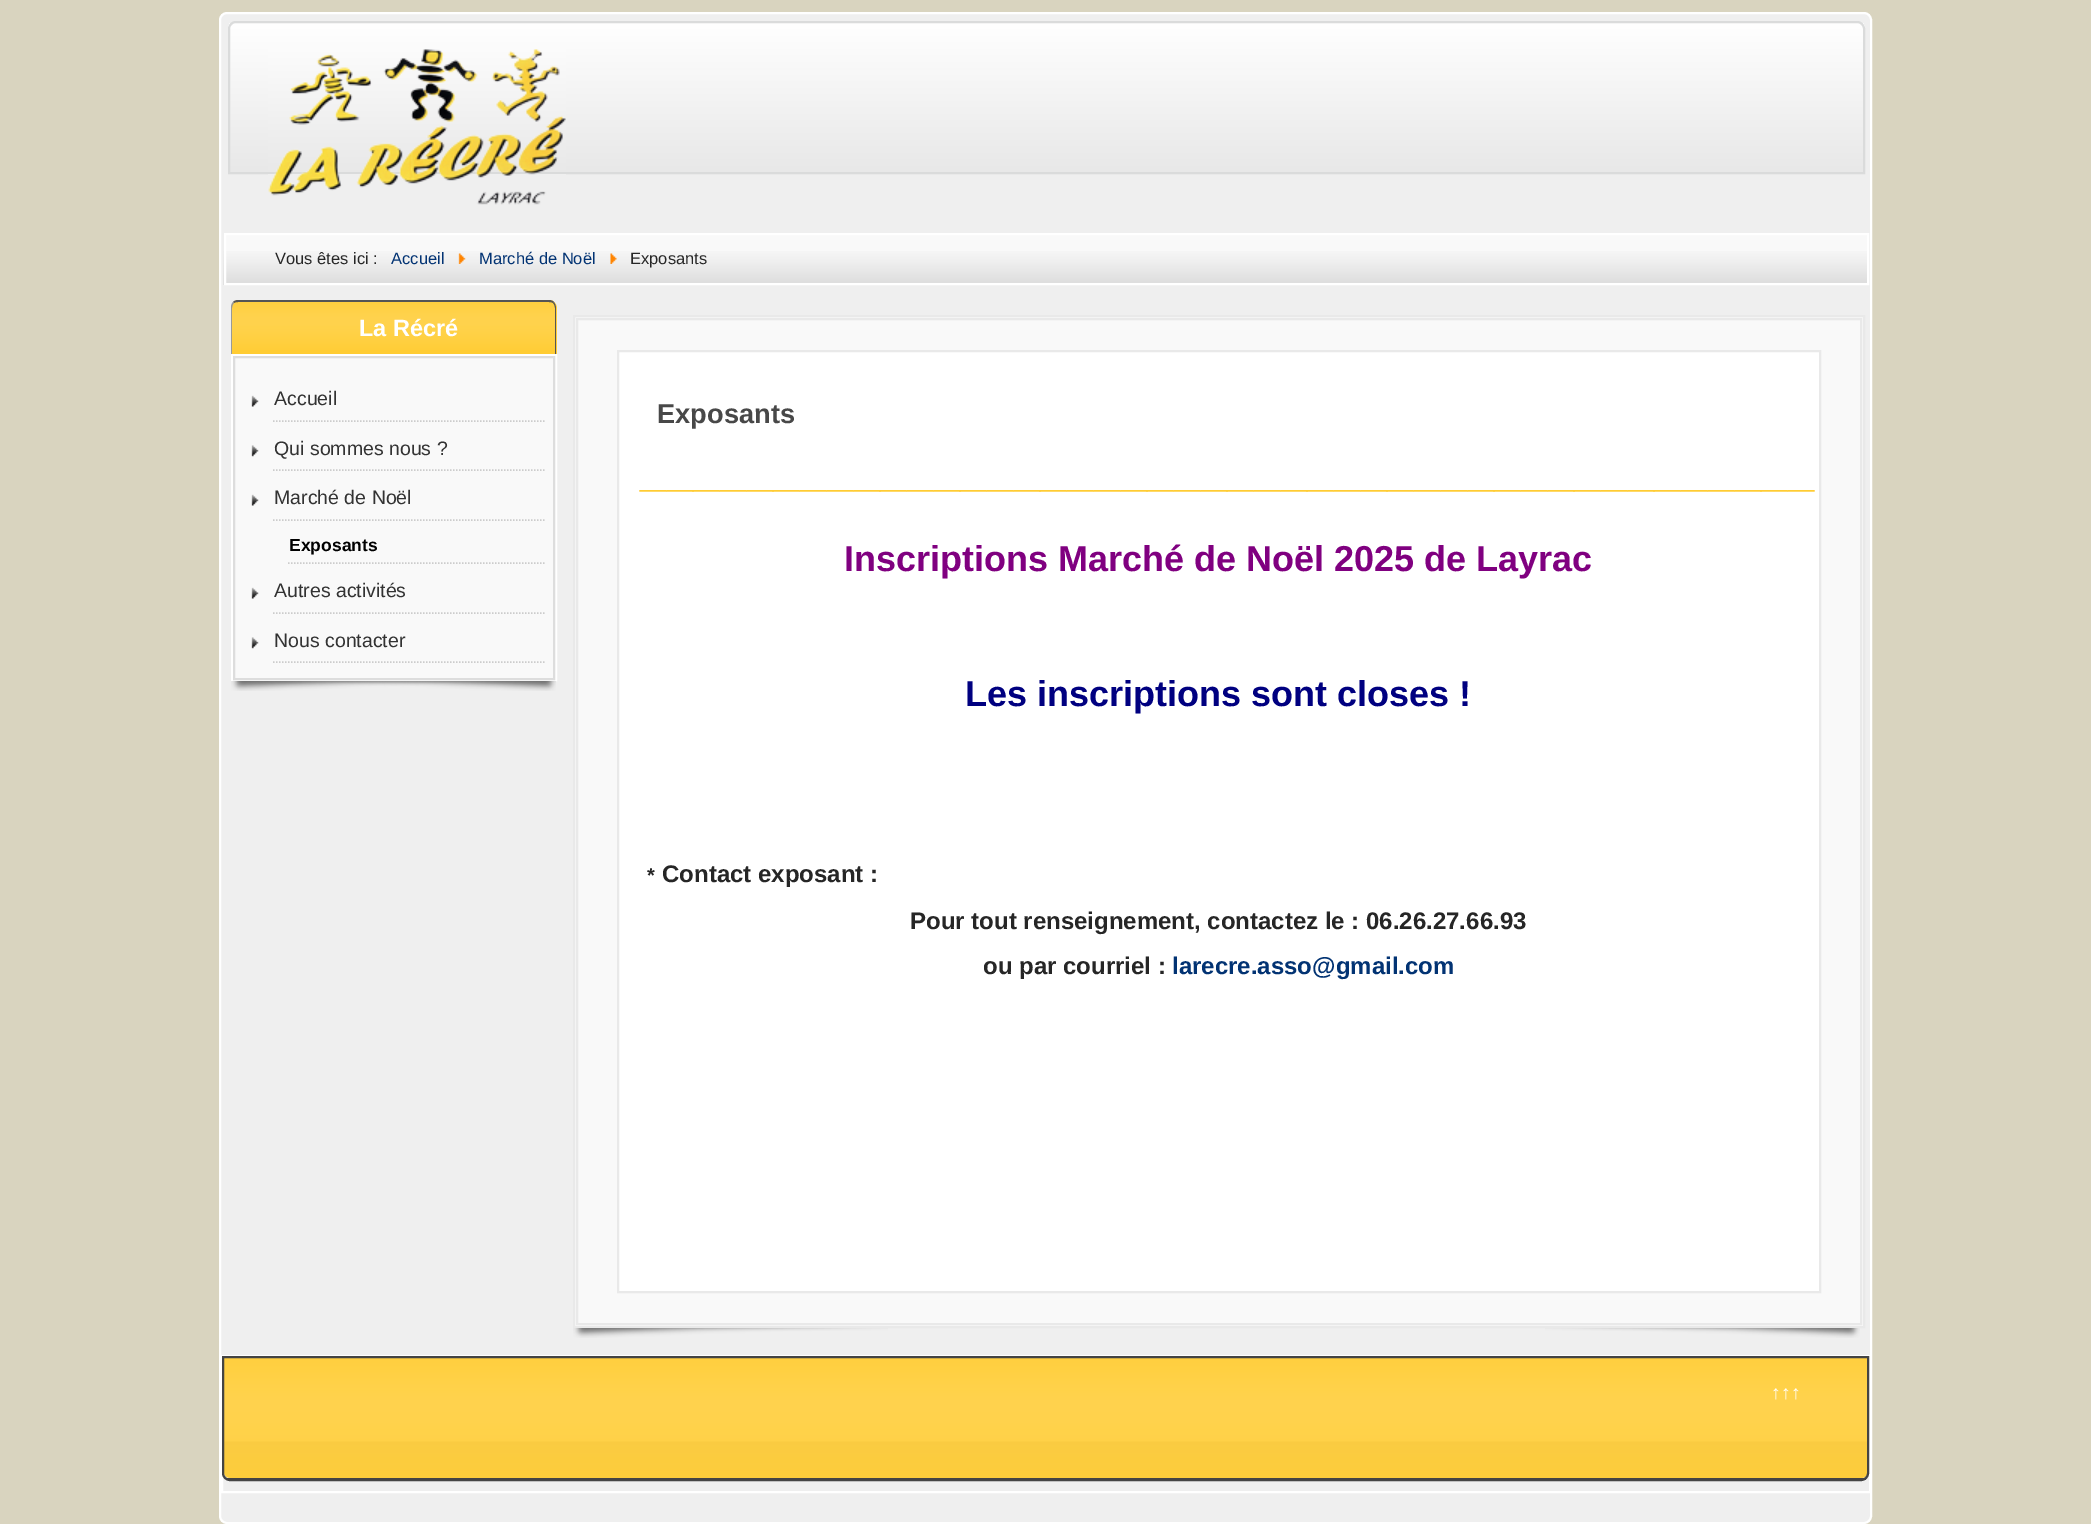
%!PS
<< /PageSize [2091 1524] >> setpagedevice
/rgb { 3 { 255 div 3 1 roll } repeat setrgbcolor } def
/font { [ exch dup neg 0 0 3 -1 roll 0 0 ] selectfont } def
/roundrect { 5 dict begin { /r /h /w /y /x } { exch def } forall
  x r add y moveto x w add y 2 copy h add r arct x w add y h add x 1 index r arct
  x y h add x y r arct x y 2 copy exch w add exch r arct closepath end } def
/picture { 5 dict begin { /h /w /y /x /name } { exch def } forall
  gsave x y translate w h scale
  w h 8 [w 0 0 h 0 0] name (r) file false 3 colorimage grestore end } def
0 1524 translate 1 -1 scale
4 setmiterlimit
217 212 191 rgb
0 0 2091 1524 rectfill
239 239 239 rgb
220 13 1651 1510 7 roundrect gsave fill grestore
255 255 255 rgb
2 setlinewidth
stroke
gsave
236 21 moveto 1857 21 lineto 1861.5 21 1865 24.5 1865 29 curveto 1865 174 lineto 228 174 lineto 228 29 lineto 228 24.5 231.5 21 236 21 curveto closepath clip newpath
gsave 228 23 moveto 1865 23 lineto 1865 172 lineto 228 172 lineto closepath clip newpath
<< /ShadingType 2 /ColorSpace /DeviceRGB /Coords [1046 22 1046 173] /Extend [true true] /Function << /FunctionType 2 /Domain [0 1] /C0 [1 1 1] /C1 [0.91 0.91 0.91] /N 1 >> >> shfill grestore
grestore
218 219 219 rgb
236 22 moveto 1857 22 lineto 1861 22 1864 25 1864 29 curveto 1864 173 lineto 229 173 lineto 229 29 lineto 229 25 232 22 236 22 curveto closepath stroke
(img/1.rgb) 268 49 298 156 picture
249 249 249 rgb
226 235 1641 48 rectfill
(img/2.rgb) 223 251 1644 34 picture
255 255 255 rgb
225 234 1643 50 rectstroke
(img/3.rgb) 458 253 8 11 picture
(img/4.rgb) 610 253 7 11 picture
255 204 51 rgb
239 300 moveto 549 300 lineto 553.5 300 557 303.5 557 308 curveto 557 354 lineto 231 354 lineto 231 308 lineto 231 303.5 234.5 300 239 300 curveto closepath fill
(img/5.rgb) 231 301 326 49 picture
85 85 85 rgb
238 300 moveto 236 300 234 301 233 302 curveto 234 303 lineto 235 302 237 302 238 302 curveto 549 302 lineto 550 302 552 302 553 303 curveto 554 302 lineto 553 301 551 300 549 300 curveto closepath fill
555 354 moveto 556 354 lineto 556 308 lineto 556 306 555 304 554 302 curveto 553 303 lineto 554 304 555 306 555 308 curveto closepath fill
153 153 153 rgb
231 354 moveto 232 354 lineto 232 308 lineto 232 306 233 304 234 303 curveto 233 302 lineto 232 303 231 305 231 308 curveto closepath fill
255 255 255 rgb
232 355 324 325 rectstroke
249 249 249 rgb
234 357 moveto 554 357 lineto 554 679 lineto 234 679 lineto closepath gsave fill grestore
221 221 221 rgb
stroke
(img/6.rgb) 251 395 8 12 picture
204 204 204 rgb
1.5 setlinewidth
[1.5 1.5] 0 setdash
273 421 moveto 544.5 421 lineto stroke
(img/7.rgb) 251 445 8 12 picture
273 470 moveto 544.5 470 lineto stroke
(img/6.rgb) 251 494 8 12 picture
273 520 moveto 544.5 520 lineto stroke
288 563 moveto 544.5 563 lineto stroke
(img/6.rgb) 251 587 8 12 picture
273 613 moveto 544.5 613 lineto stroke
(img/7.rgb) 251 637 8 12 picture
273 662 moveto 544.5 662 lineto stroke
(img/8.rgb) 231 681 320 10 picture
(img/9.rgb) 237 681 319 10 picture
249 249 249 rgb
574 316 moveto 1864 316 lineto 1864 1327 lineto 574 1327 lineto closepath gsave fill grestore
233 233 233 rgb
2 setlinewidth
[] 0 setdash
stroke
577 319 1284 1005 rectstroke
255 255 255 rgb
618 351 moveto 1820 351 lineto 1820 1292 lineto 618 1292 lineto closepath gsave fill grestore
233 233 233 rgb
stroke
(img/10.rgb) 573 1328 315 10 picture
(img/11.rgb) 1545 1328 315 10 picture
255 255 255 rgb
222 1356 1648 136 rectstroke
255 204 51 rgb
224 1358 moveto 1868 1358 lineto 1868 1473 lineto 1868 1475 1865 1478 1862 1478 curveto 230 1478 lineto 226 1478 224 1475 224 1473 curveto closepath fill
(img/12.rgb) 222 1358 1647 120 picture
68 68 68 rgb
223 1357 moveto 1868 1357 lineto 1868 1473 lineto 1868 1477 1865 1480 1861 1480 curveto 230 1480 lineto 226 1480 223 1477 223 1473 curveto closepath stroke
227 1478 1639 2 rectfill
/LiberationSans-Regular 16.5 font
38 38 38 rgb
275 264 moveto (Vous êtes ici :) show
2 51 115 rgb
391 264 moveto (Accueil) show
479 264 moveto (Marché de Noël) show
38 38 38 rgb
630 264 moveto (Exposants) show
/LiberationSans-Bold 23.5 font
255 255 255 rgb
359 336 moveto (La Récré) show
/LiberationSans-Regular 19.5 font
51 51 51 rgb
[
  [(Accueil) 274 405]
  [(Qui sommes nous ?) 274 455]
  [(Marché de Noël) 274 504]
] { aload pop moveto show } forall
/LiberationSans-Bold 17.5 font
0 0 0 rgb
289 551 moveto (Exposants) show
/LiberationSans-Regular 19.5 font
51 51 51 rgb
274 597 moveto (Autres activités) show
274 647 moveto (Nous contacter) show
/LiberationSans-Bold 27.25 font
72 72 72 rgb
657 423 moveto (Exposants) show
/LiberationSans-BoldItalic 48 font
255 204 51 rgb
642 486 moveto (____________________________________________) show
/LiberationSans-Bold 36 font
128 0 128 rgb
844 571 moveto (Inscriptions Marché de Noël 2025 de Layrac) show
0 0 128 rgb
965 706 moveto (Les inscriptions sont closes !) show
/LiberationSans-Bold 20 font
38 38 38 rgb
647 882 moveto (*) show
/LiberationSans-Bold 24 font
[
  [(Contact exposant :) 662 882]
  [(Pour tout renseignement, contactez le : 06.26.27.66.93) 910 929]
  [(ou par courriel :) 983 974]
] { aload pop moveto show } forall
2 51 115 rgb
1172 974 moveto (larecre.asso@gmail.com) show
/LiberationSans-Regular 19.5 font
255 255 255 rgb
1771 1399 moveto (↑↑↑) show
showpage
